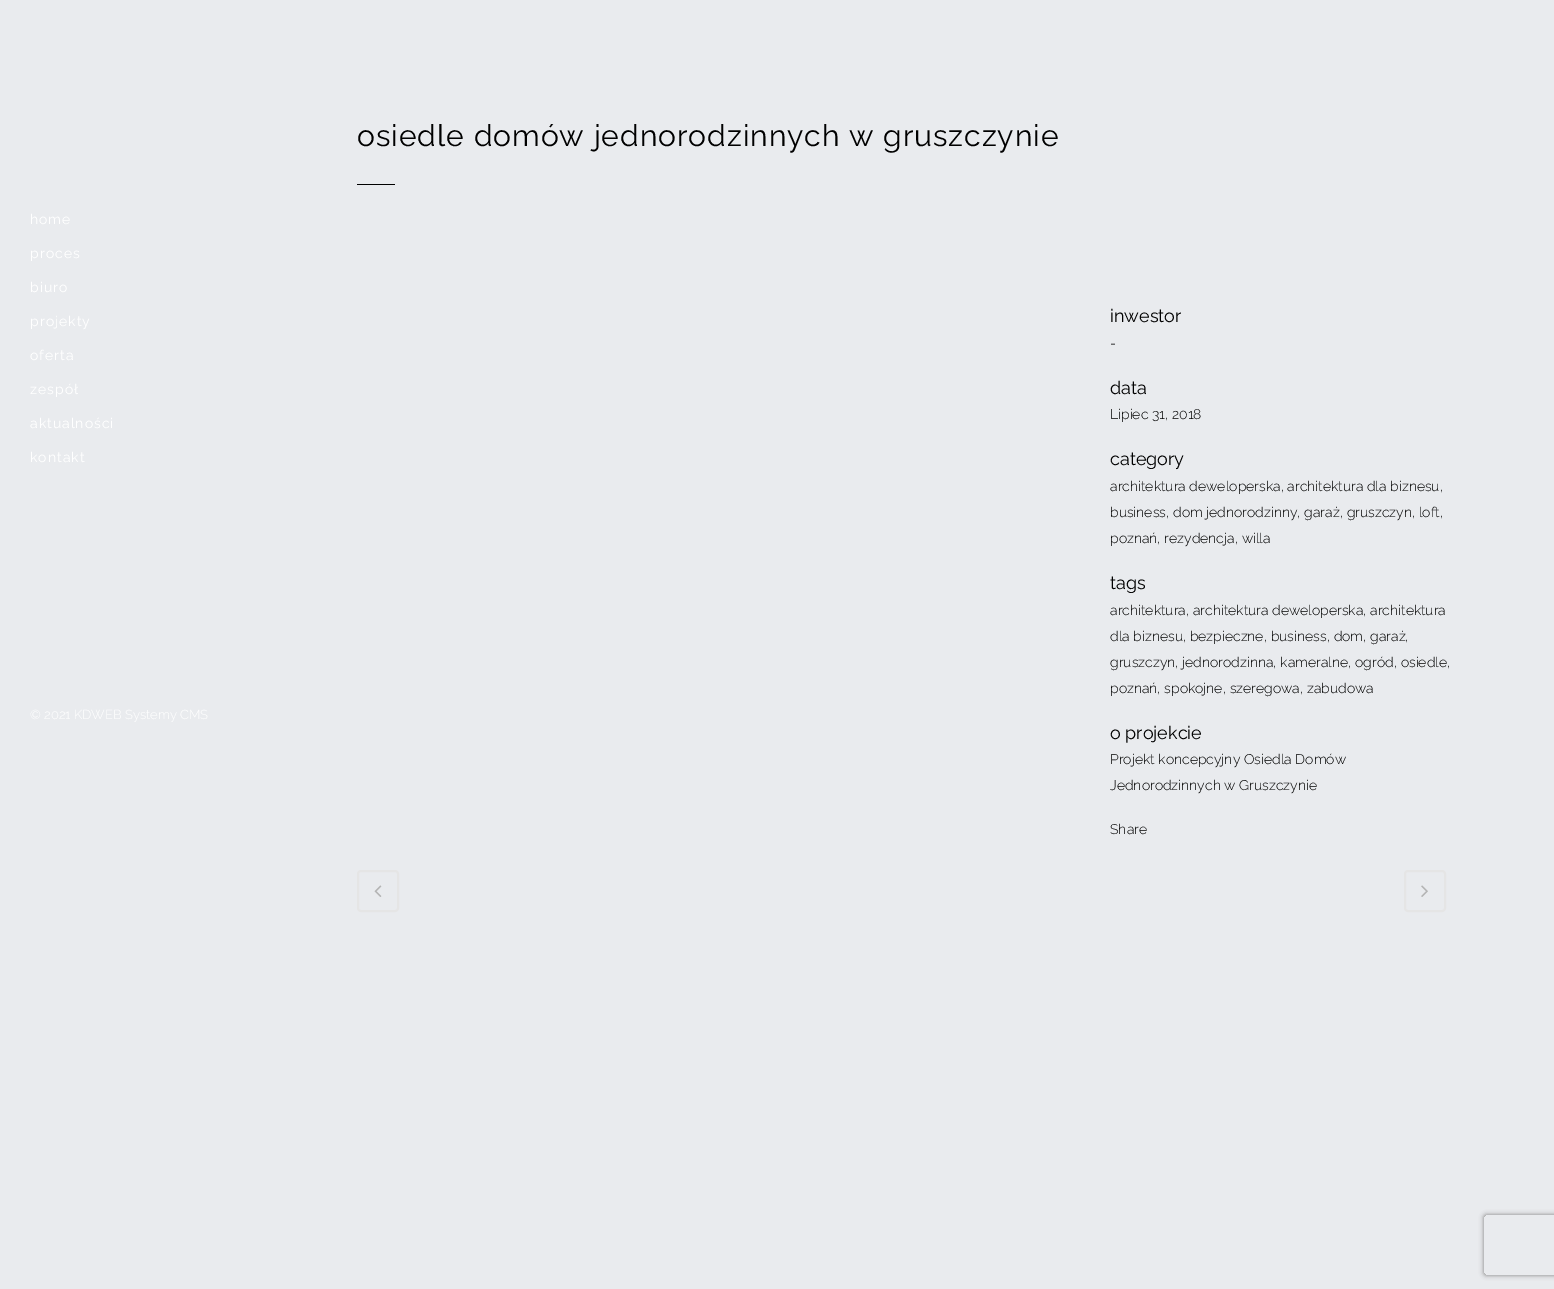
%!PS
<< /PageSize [1554 1289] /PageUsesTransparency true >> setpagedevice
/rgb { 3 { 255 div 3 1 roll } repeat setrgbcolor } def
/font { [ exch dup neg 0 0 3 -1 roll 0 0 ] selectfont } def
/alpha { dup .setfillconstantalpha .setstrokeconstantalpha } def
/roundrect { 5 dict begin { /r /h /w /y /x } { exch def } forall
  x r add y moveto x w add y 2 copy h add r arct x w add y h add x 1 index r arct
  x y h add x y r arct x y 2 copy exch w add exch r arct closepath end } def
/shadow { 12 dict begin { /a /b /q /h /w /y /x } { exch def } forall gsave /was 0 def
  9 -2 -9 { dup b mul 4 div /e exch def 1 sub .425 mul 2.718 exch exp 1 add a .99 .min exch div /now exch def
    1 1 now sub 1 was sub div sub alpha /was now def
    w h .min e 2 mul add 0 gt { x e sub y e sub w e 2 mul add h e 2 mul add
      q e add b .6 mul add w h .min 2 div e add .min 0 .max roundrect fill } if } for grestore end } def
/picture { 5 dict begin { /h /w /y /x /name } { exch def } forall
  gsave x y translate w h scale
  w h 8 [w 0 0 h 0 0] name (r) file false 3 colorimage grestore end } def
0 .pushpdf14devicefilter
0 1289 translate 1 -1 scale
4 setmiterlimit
233 235 238 rgb
0 0 1554 1289 rectfill
0 0 0 rgb
357 184 38 1 rectfill
229 229 229 rgb
2 setlinewidth
358 871 40 40 3 roundrect stroke
(img/1.rgb) 374 885 8 12 picture
1405 871 40 40 3 roundrect stroke
(img/2.rgb) 1421 885 7 12 picture
gsave
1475 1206 moveto 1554 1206 lineto 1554 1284 lineto 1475 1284 lineto closepath 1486 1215 moveto 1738 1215 lineto 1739 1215 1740 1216 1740 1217 curveto 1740 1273 lineto 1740 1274 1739 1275 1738 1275 curveto 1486 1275 lineto 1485 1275 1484 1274 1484 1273 curveto 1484 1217 lineto 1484 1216 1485 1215 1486 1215 curveto closepath eoclip newpath
128 128 128 rgb
1484 1215 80 60 2 2.5 1 shadow
grestore
/Raleway-Regular 14 font
255 255 255 rgb
30 224 moveto 1 0 (home) ashow
30 258 moveto 1 0 (proces) ashow
30 292 moveto 1 0 (biuro) ashow
30 326 moveto 1 0 (projekty) ashow
30 360 moveto 1 0 (oferta) ashow
30 394 moveto 1 0 (zespół) ashow
30 428 moveto 1 0 (aktualności) ashow
30 462 moveto 1 0 (kontakt) ashow
/Raleway-Light 13 font
30 719 moveto (© 2021 KDWEB Systemy CMS) show
/Raleway-Regular 30 font
0 0 0 rgb
357 146 moveto 1 0 (osiedle domów jednorodzinnych w gruszczynie) ashow
/Raleway-Regular 18 font
1110 322 moveto (inwestor) show
/Raleway-Light 14 font
1110 348 moveto (-) show
/Raleway-Regular 18 font
1110 394 moveto (data) show
/Raleway-Light 14 font
1110 419 moveto (Lipiec 31, 2018) show
/Raleway-Regular 18 font
1110 465 moveto (category) show
/Raleway-Light 14 font
[
  [(architektura deweloperska, architektura dla biznesu,) 1110 491]
  [(business, dom jednorodzinny, garaż, gruszczyn, loft,) 1110 517]
  [(poznań, rezydencja, willa) 1110 543]
] { aload pop moveto show } forall
/Raleway-Regular 18 font
1110 589 moveto (tags) show
/Raleway-Light 14 font
[
  [(architektura, architektura deweloperska, architektura) 1110 615]
  [(dla biznesu, bezpieczne, business, dom, garaż,) 1110 641]
  [(gruszczyn, jednorodzinna, kameralne, ogród, osiedle,) 1110 667]
  [(poznań, spokojne, szeregowa, zabudowa) 1110 693]
] { aload pop moveto show } forall
/Raleway-Regular 18 font
1110 739 moveto (o projekcie) show
/Raleway-Light 14 font
[
  [(Projekt koncepcyjny Osiedla Domów) 1110 764]
  [(Jednorodzinnych w Gruszczynie) 1110 790]
  [(Share) 1110 834]
] { aload pop moveto show } forall
.poppdf14devicefilter showpage
